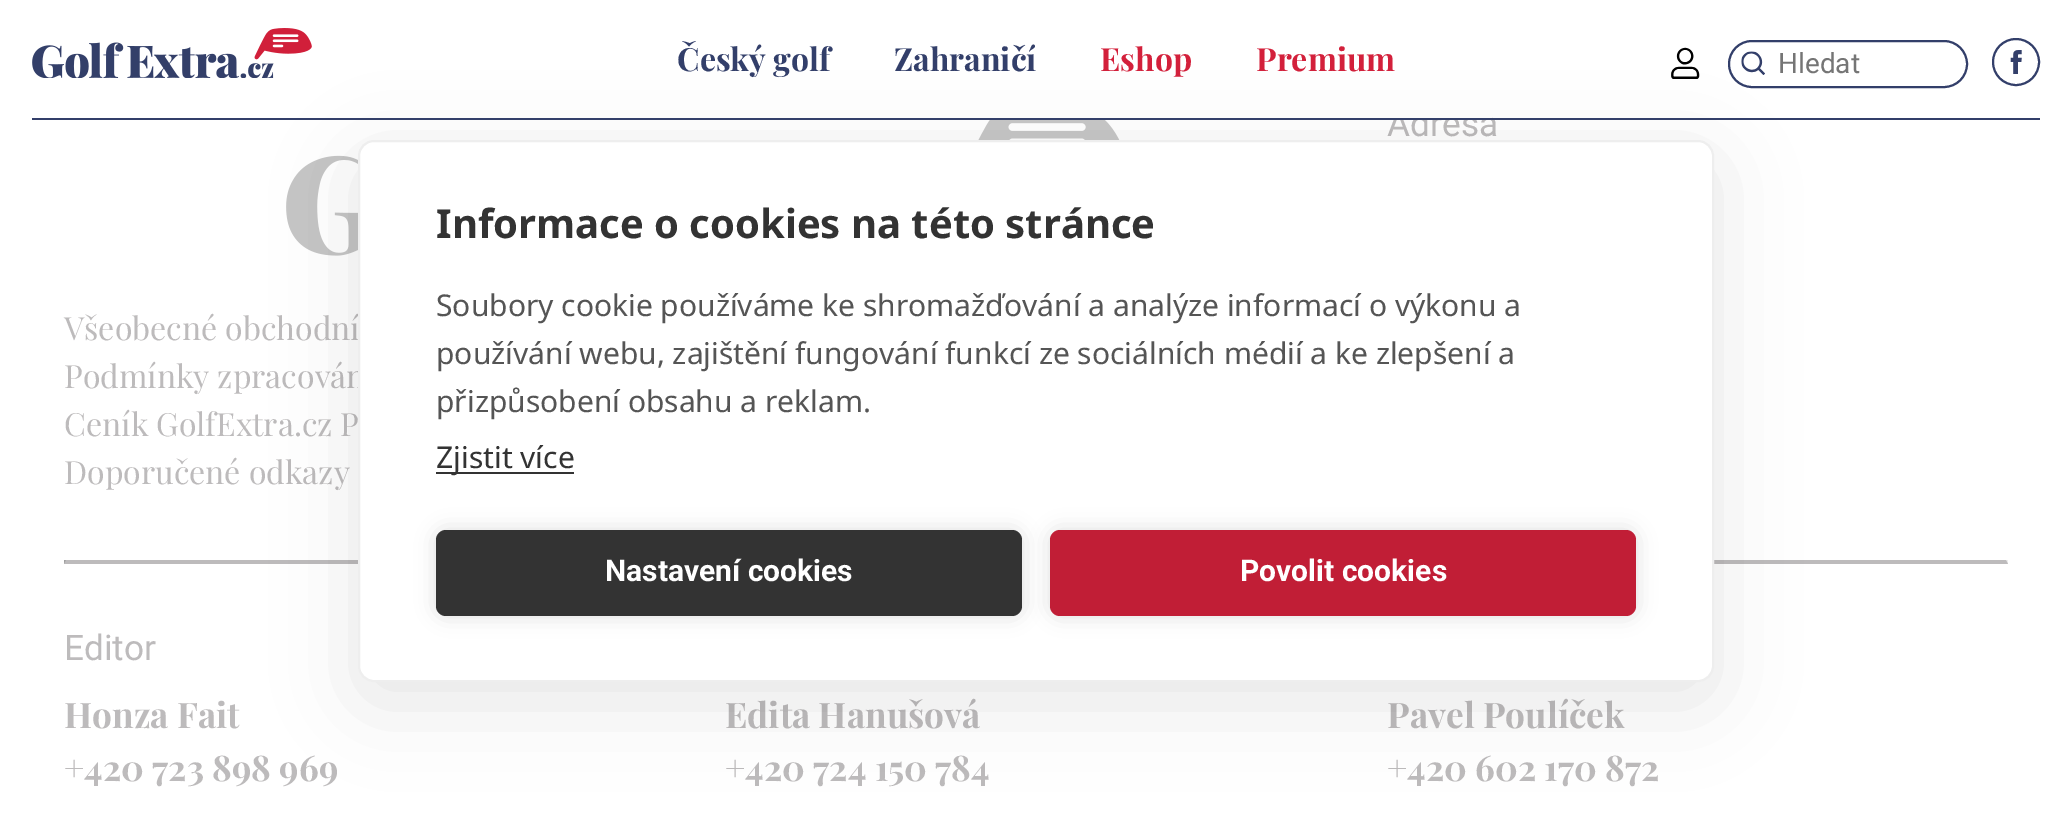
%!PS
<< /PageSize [2071 818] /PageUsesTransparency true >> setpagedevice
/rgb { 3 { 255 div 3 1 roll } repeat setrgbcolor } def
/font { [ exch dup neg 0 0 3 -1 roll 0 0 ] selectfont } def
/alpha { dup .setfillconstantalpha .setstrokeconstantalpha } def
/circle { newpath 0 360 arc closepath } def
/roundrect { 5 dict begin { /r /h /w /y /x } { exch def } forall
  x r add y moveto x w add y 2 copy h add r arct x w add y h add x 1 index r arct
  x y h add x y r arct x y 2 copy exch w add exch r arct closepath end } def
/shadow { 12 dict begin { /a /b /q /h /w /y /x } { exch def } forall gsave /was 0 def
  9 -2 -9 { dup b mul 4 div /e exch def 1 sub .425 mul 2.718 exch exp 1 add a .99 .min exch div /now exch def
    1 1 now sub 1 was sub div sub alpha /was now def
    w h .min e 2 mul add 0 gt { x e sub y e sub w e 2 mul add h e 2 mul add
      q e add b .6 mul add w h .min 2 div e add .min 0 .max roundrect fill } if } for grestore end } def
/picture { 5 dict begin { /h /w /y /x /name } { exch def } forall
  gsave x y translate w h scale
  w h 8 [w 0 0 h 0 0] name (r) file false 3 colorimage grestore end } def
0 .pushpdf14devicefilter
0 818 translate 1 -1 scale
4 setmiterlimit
255 255 255 rgb
0 0 2071 818 rectfill
(img/1.rgb) 32 28 280 50 picture
(img/2.rgb) 1671 47 29 32 picture
51 63 106 rgb
2 setlinewidth
1729 41 238 46 23 roundrect stroke
(img/3.rgb) 1741 51 24 24 picture
2016 62 23 circle stroke
(img/4.rgb) 2010 50 12 24 picture
(img/5.rgb) 286 120 834 136 picture
238 238 238 rgb
2008 560 moveto 2008 564 lineto 2006 560 lineto closepath fill
189 187 188 rgb
2008 564 moveto 64 564 lineto 66 560 lineto 2006 560 lineto closepath fill
159 159 159 rgb
64 564 moveto 64 560 lineto 66 560 lineto closepath fill
/PlayfairDisplay-Bold 32 font
51 63 106 rgb
677 71 moveto (Český golf) show
894 71 moveto (Zahraničí) show
211 32 59 rgb
1100 71 moveto (Eshop) show
1256 71 moveto (Premium) show
/Roboto-Regular 28 font
117 117 117 rgb
1778 73 moveto (Hledat) show
/Roboto-Regular 35.25 font
189 187 188 rgb
1387 136 moveto (Adresa) show
51 63 106 rgb
32 118 2008 2 rectfill
255 255 255 rgb
1394 109 98 9 rectfill
/PlayfairDisplay-Regular 32 font
189 187 188 rgb
[
  [(Všeobecné obchodní) 64 340]
  [(Podmínky zpracován) 64 388]
  [(Ceník GolfExtra.cz P) 64 436]
  [(Doporučené odkazy) 64 484]
] { aload pop moveto show } forall
/Roboto-Regular 35.25 font
64 660 moveto (Editor) show
/PlayfairDisplay-Bold 35.25 font
[
  [(Honza Fait) 64 728]
  [(+420 723 898 969) 64 781]
  [(Edita Hanušová) 725 728]
  [(+420 724 150 784) 725 781]
  [(Pavel Poulíček) 1387 728]
  [(+420 602 170 872) 1387 781]
] { aload pop moveto show } forall
0 0 0 rgb
358 160 1356 542 16 40 0.1 shadow
255 255 255 rgb
359 141 1354 540 15 roundrect gsave fill grestore
238 238 238 rgb
stroke
/NotoSans-Bold 40 font
51 51 51 rgb
436 238 moveto (Informace o cookies na této stránce) show
/NotoSans-Regular 30 font
85 85 85 rgb
[
  [(Soubory cookie používáme ke shromažďování a analýze informací o výkonu a) 436 316]
  [(používání webu, zajištění fungování funkcí ze sociálních médií a ke zlepšení a) 436 364]
  [(přizpůsobení obsahu a reklam.) 436 412]
] { aload pop moveto show } forall
51 51 51 rgb
436 472 138 2 rectfill
436 468 moveto (Zjistit více) show
0 0 0 rgb
436 530 586 86 10 10 0.12 shadow
51 51 51 rgb
436 530 586 86 10 roundrect fill
/Roboto-Bold 30 font
255 255 255 rgb
605 581 moveto (Nastavení cookies) show
0 0 0 rgb
1050 530 586 86 10 10 0.12 shadow
193 30 54 rgb
1050 530 586 86 10 roundrect fill
255 255 255 rgb
1240 581 moveto (Povolit cookies) show
.poppdf14devicefilter showpage
